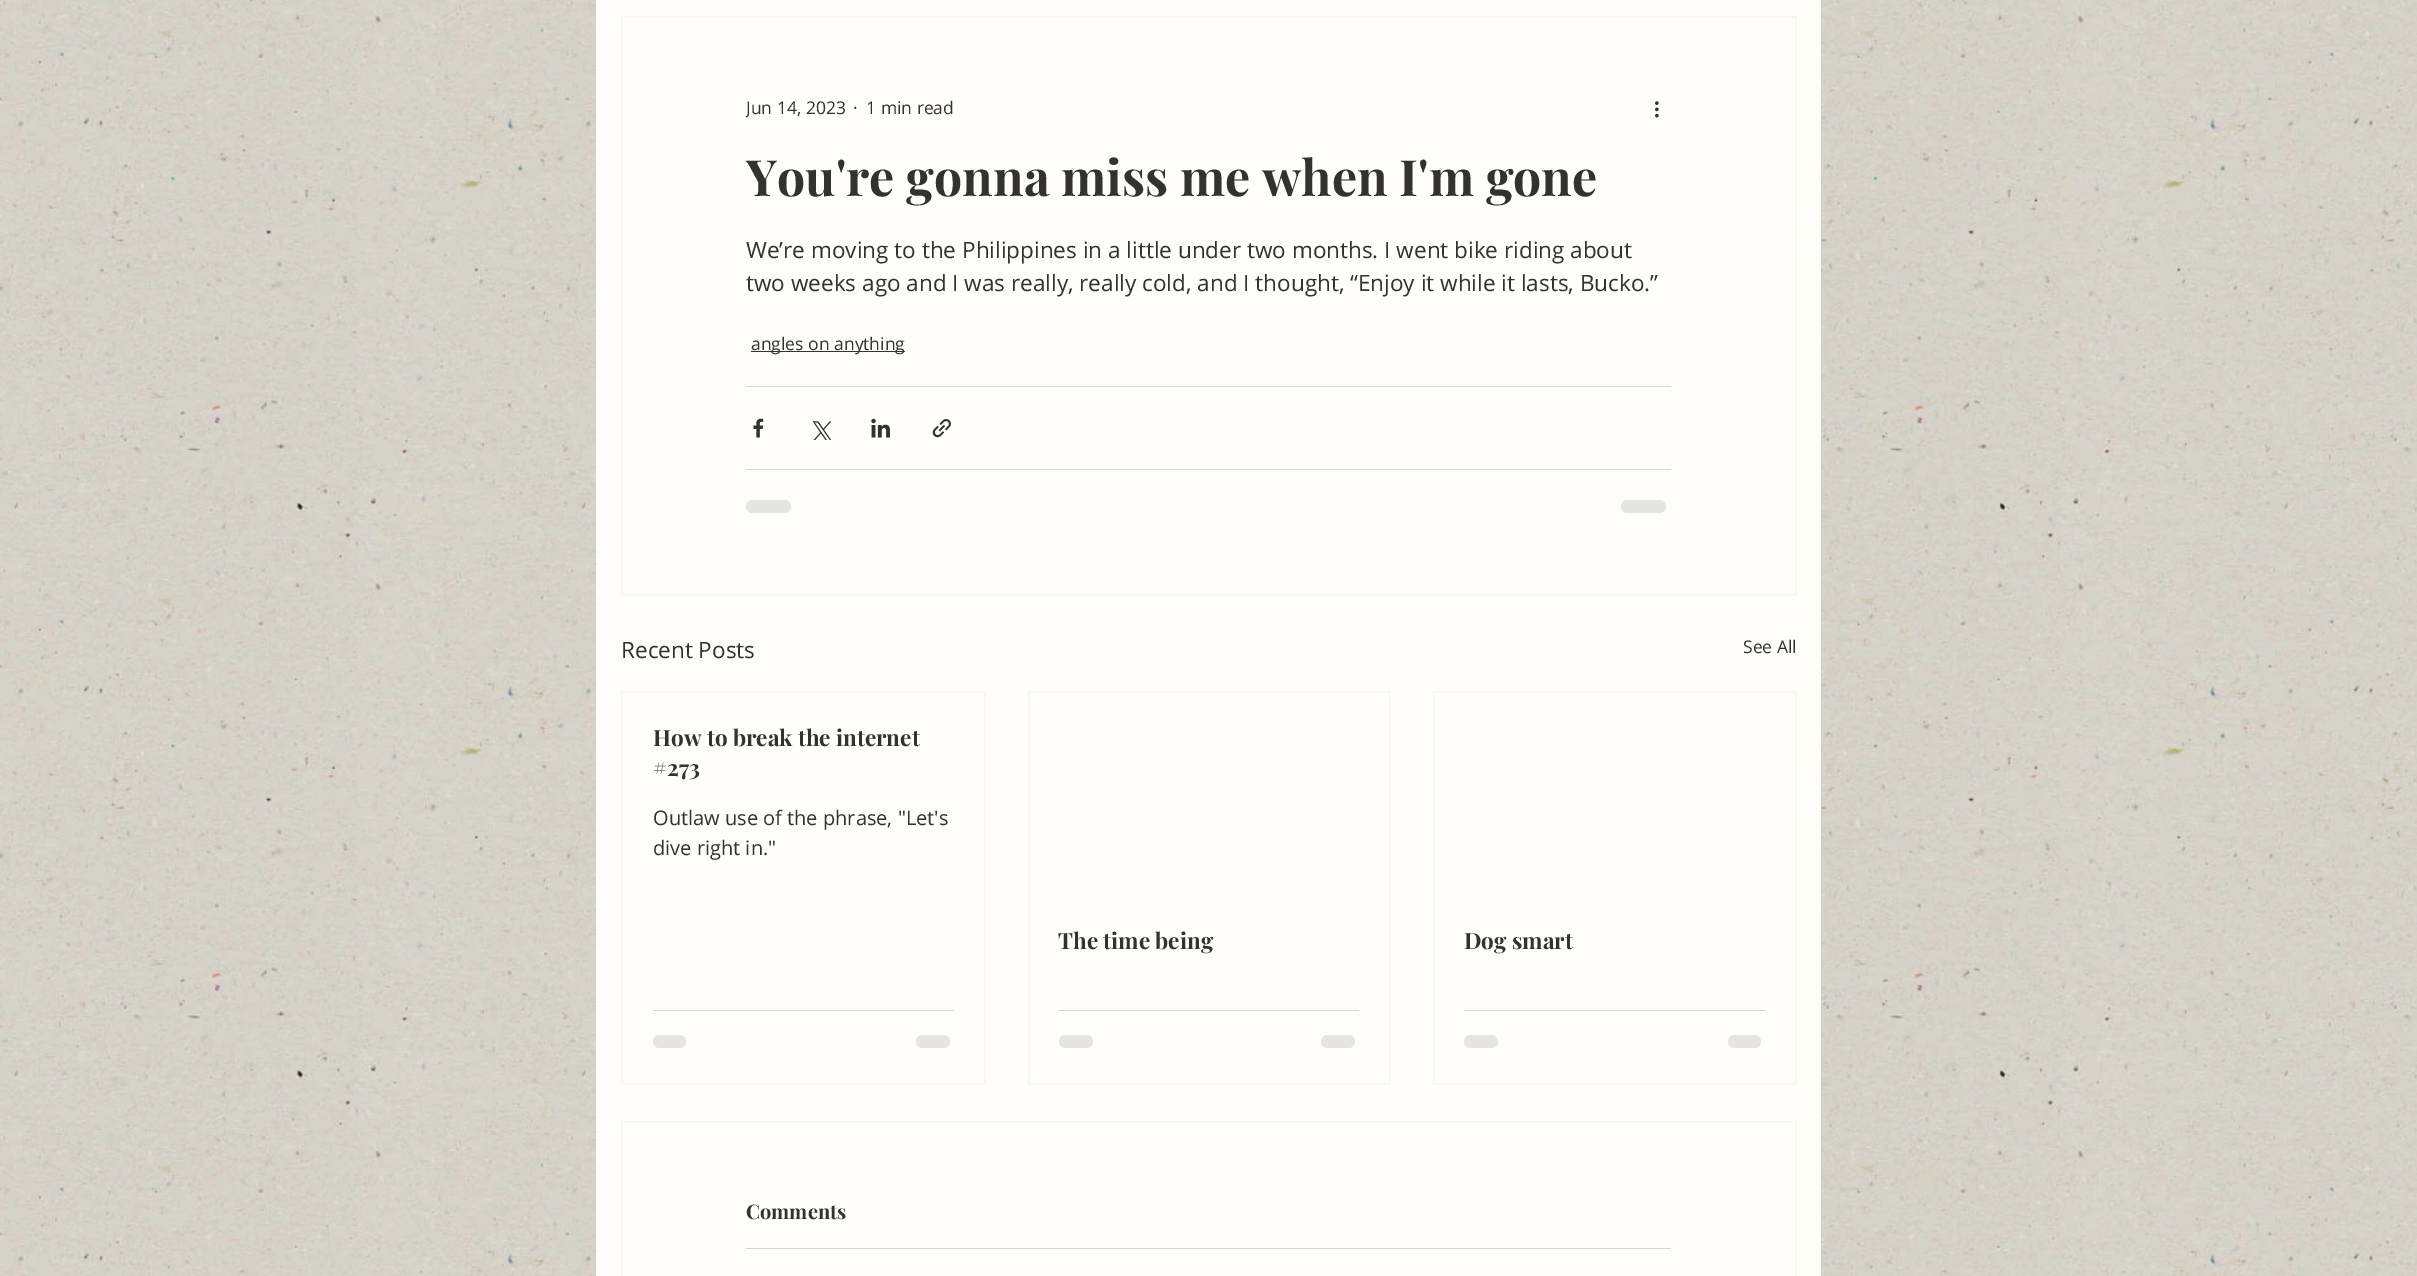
%!PS
<< /PageSize [2417 1276] >> setpagedevice
/rgb { 3 { 255 div 3 1 roll } repeat setrgbcolor } def
/font { [ exch dup neg 0 0 3 -1 roll 0 0 ] selectfont } def
/roundrect { 5 dict begin { /r /h /w /y /x } { exch def } forall
  x r add y moveto x w add y 2 copy h add r arct x w add y h add x 1 index r arct
  x y h add x y r arct x y 2 copy exch w add exch r arct closepath end } def
/picture { 5 dict begin { /h /w /y /x /name } { exch def } forall
  gsave x y translate w h scale
  w h 8 [w 0 0 h 0 0] name (r) file false 3 colorimage grestore end } def
0 1276 translate 1 -1 scale
4 setmiterlimit
255 255 255 rgb
0 0 2417 1276 rectfill
(img/1.rgb) 0 0 2417 1276 picture
255 253 250 rgb
596 0 1225 1276 rectfill
249 245 237 rgb
621.5 16.5 1174 578 rectstroke
(img/2.rgb) 1655 101 4 17 picture
51 50 48 rgb
751 351 154 1 rectfill
214 212 210 rgb
746 386 925 1 rectfill
(img/3.rgb) 753 418 11 20 picture
(img/4.rgb) 812 421 19 19 picture
(img/5.rgb) 871 418 19 20 picture
(img/6.rgb) 932 419 19 19 picture
746 469 925 1 rectfill
231 229 226 rgb
746 500 45 13 6.5 roundrect fill
1621 500 45 13 6.5 roundrect fill
249 245 237 rgb
621.5 691.5 363 392 rectstroke
214 212 210 rgb
653 1010 301 1 rectfill
231 229 226 rgb
653 1035 33 13 6.5 roundrect fill
916 1035 34 13 6.5 roundrect fill
249 245 237 rgb
1028.5 691.5 361 392 rectstroke
214 212 210 rgb
1059 1010 300 1 rectfill
231 229 226 rgb
1059 1035 34 13 6.5 roundrect fill
1321 1035 34 13 6.5 roundrect fill
249 245 237 rgb
1433.5 691.5 362 392 rectstroke
214 212 210 rgb
1464 1010 301 1 rectfill
231 229 226 rgb
1464 1035 34 13 6.5 roundrect fill
1728 1035 33 13 6.5 roundrect fill
249 245 237 rgb
621.5 1121.5 1174 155 rectstroke
214 212 210 rgb
746 1248 925 1 rectfill
gsave
746 95 100 26 rectclip
/OpenSans-Regular 17.5 font
51 50 48 rgb
746 114 moveto (Jun 14, 2023) show
grestore
/OpenSans-Regular 17.5 font
51 50 48 rgb
853 114 moveto (·) show
866 114 moveto (1 min read) show
/PlayfairDisplay-Bold 50 font
746 196 moveto (You're gonna miss me when I'm gone) show
/OpenSans-Regular 22.5 font
746 258 moveto (We’re moving to the Philippines in a little under two months. I went bike riding about) show
746 291 moveto (two weeks ago and I was really, really cold, and I thought, “Enjoy it while it lasts, Bucko.”) show
/OpenSans-Regular 17.5 font
751 350 moveto (angles on anything) show
/OpenSans-Regular 22.5 font
621 658 moveto (Recent Posts) show
/OpenSans-Regular 17.5 font
1743 653 moveto (See All) show
/PlayfairDisplay-Bold 22.5 font
653 746 moveto (How to break the internet) show
653 776 moveto (#273) show
/OpenSans-Regular 20 font
653 825 moveto (Outlaw use of the phrase, "Let's) show
653 855 moveto (dive right in.") show
/PlayfairDisplay-Bold 22.5 font
1058 949 moveto (The time being) show
1464 949 moveto (Dog smart) show
/PlayfairDisplay-Bold 20 font
746 1219 moveto (Comments) show
showpage
